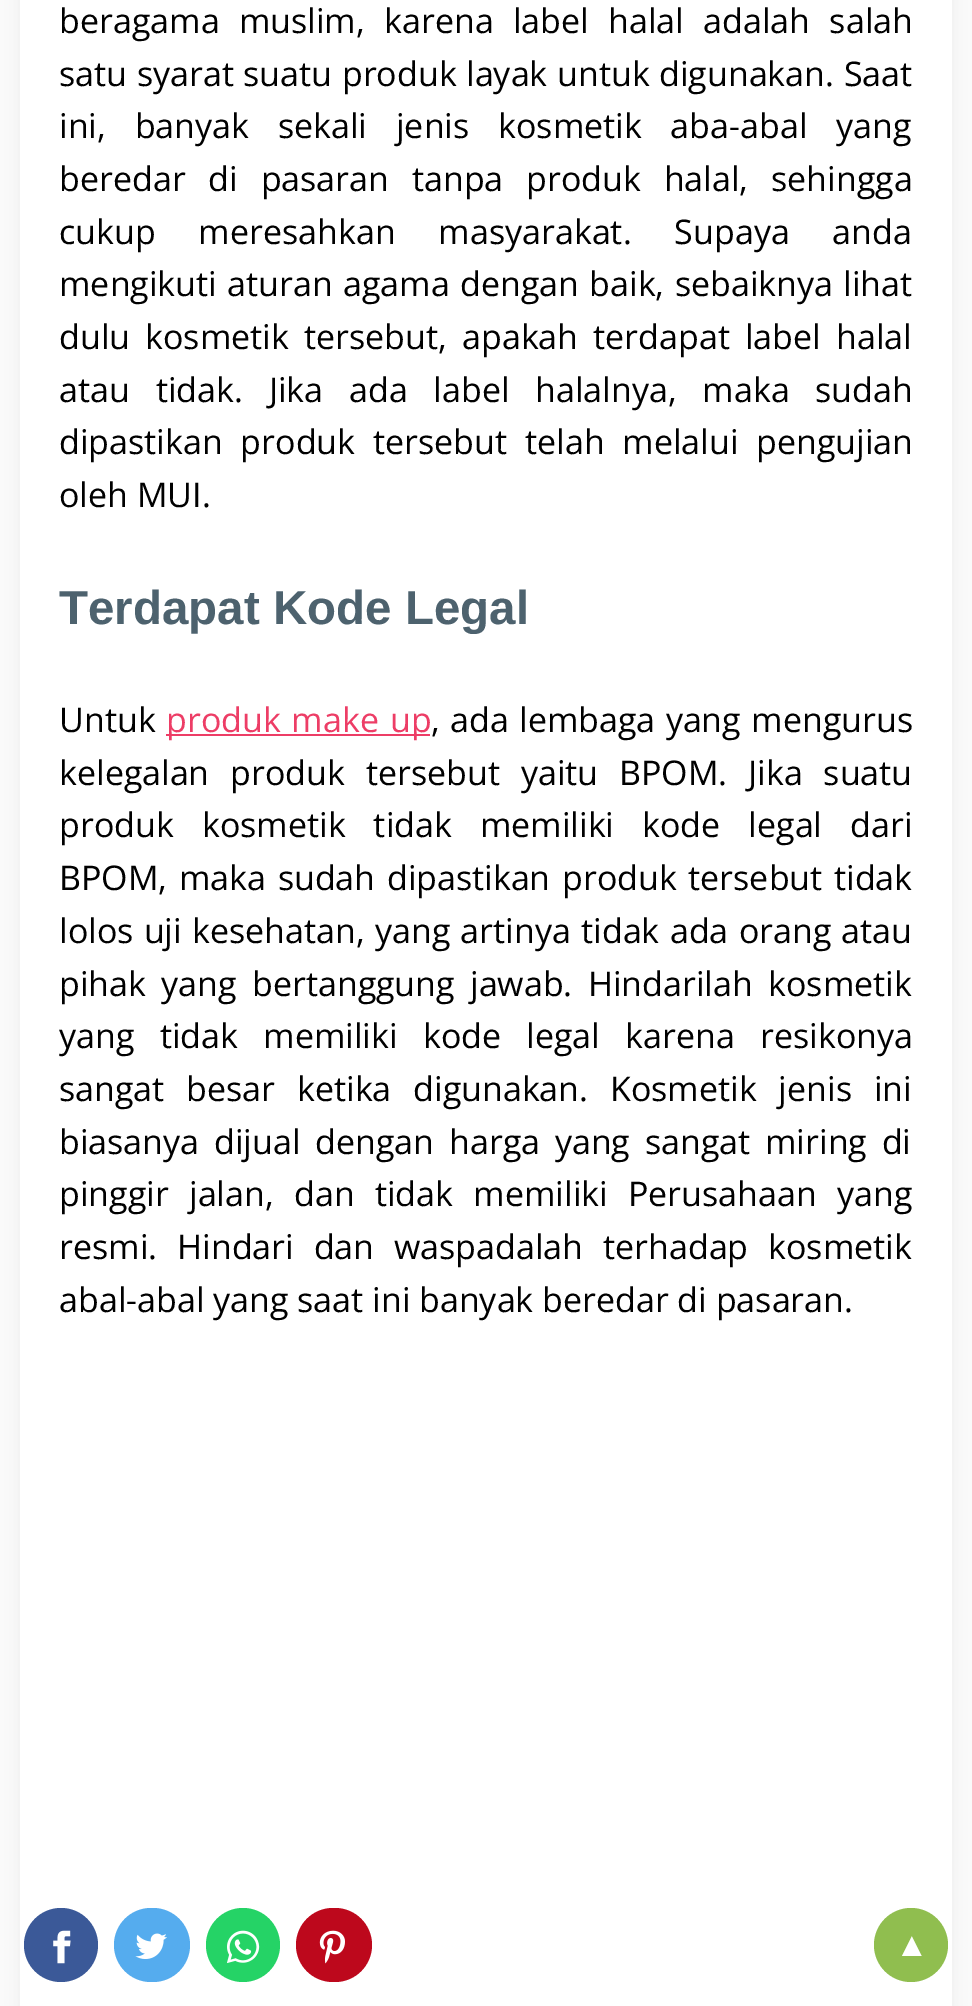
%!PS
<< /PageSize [972 2006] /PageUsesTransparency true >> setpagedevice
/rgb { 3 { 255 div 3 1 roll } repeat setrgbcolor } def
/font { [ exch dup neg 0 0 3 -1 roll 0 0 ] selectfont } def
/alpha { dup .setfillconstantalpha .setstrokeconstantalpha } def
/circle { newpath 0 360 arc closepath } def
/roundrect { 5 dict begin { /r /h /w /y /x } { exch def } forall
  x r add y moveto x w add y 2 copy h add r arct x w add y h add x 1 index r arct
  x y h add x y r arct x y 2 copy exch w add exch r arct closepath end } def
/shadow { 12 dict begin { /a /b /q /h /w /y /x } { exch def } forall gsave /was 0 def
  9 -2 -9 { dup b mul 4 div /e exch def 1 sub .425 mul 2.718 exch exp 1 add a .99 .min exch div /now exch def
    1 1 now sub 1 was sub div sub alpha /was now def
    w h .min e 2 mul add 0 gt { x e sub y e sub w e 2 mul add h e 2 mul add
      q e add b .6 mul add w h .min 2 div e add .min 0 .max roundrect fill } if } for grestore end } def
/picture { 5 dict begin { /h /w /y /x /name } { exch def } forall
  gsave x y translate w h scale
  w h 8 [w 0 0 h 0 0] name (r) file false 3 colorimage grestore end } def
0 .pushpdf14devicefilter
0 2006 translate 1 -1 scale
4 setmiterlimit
250 250 250 rgb
0 0 972 2006 rectfill
0 0 0 rgb
20 -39 932 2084 12 9 0.06 shadow
255 255 255 rgb
20 0 932 2006 rectfill
237 61 102 rgb
166 734 264 2 rectfill
59 89 152 rgb
61 1945 37 circle fill
(img/1.rgb) 53 1930 18 34 picture
85 172 238 rgb
114 1908 76 74 37 roundrect fill
(img/2.rgb) 135 1933 32 26 picture
37 211 102 rgb
243 1945 37 circle fill
(img/3.rgb) 227 1930 33 33 picture
189 8 28 rgb
296 1908 76 74 37 roundrect fill
(img/4.rgb) 319 1930 26 34 picture
144 190 79 rgb
911 1945 37 circle fill
/OpenSans-Regular 34 font
0 0 0 rgb
59 33 moveto 10.5 0 32 (beragama muslim, karena label halal adalah salah) widthshow
59 86 moveto 0.75 0 32 (satu syarat suatu produk layak untuk digunakan. Saat) widthshow
59 138 moveto 20 0 32 (ini, banyak sekali jenis kosmetik aba-abal yang) widthshow
59 191 moveto 14 0 32 (beredar di pasaran tanpa produk halal, sehingga) widthshow
59 244 moveto 34 0 32 (cukup meresahkan masyarakat. Supaya anda) widthshow
59 296 moveto 1.5 0 32 (mengikuti aturan agama dengan baik, sebaiknya lihat) widthshow
59 349 moveto 6.25 0 32 (dulu kosmetik tersebut, apakah terdapat label halal) widthshow
59 402 moveto 17 0 32 (atau tidak. Jika ada label halalnya, maka sudah) widthshow
59 454 moveto 9 0 32 (dipastikan produk tersebut telah melalui pengujian) widthshow
59 507 moveto (oleh MUI.) show
/LiberationSans-Bold 47.5 font
77 98 110 rgb
59 624 moveto (Terdapat Kode Legal) show
/OpenSans-Regular 34 font
0 0 0 rgb
59 732 moveto (Untuk) show
237 61 102 rgb
166 732 moveto 2 0 32 (produk make up) widthshow
0 0 0 rgb
431 732 moveto 1.5 0 32 (, ada lembaga yang mengurus) widthshow
59 785 moveto 12 0 32 (kelegalan produk tersebut yaitu BPOM. Jika suatu) widthshow
59 837 moveto 19.25 0 32 (produk kosmetik tidak memiliki kode legal dari) widthshow
59 890 moveto 2.75 0 32 (BPOM, maka sudah dipastikan produk tersebut tidak) widthshow
59 943 moveto 1.5 0 32 (lolos uji kesehatan, yang artinya tidak ada orang atau) widthshow
59 996 moveto 6.5 0 32 (pihak yang bertanggung jawab. Hindarilah kosmetik) widthshow
59 1048 moveto 16.5 0 32 (yang tidak memiliki kode legal karena resikonya) widthshow
59 1101 moveto 13 0 32 (sangat besar ketika digunakan. Kosmetik jenis ini) widthshow
59 1154 moveto 6 0 32 (biasanya dijual dengan harga yang sangat miring di) widthshow
59 1206 moveto 11.5 0 32 (pinggir jalan, dan tidak memiliki Perusahaan yang) widthshow
59 1259 moveto 11 0 32 (resmi. Hindari dan waspadalah terhadap kosmetik) widthshow
59 1312 moveto (abal-abal yang saat ini banyak beredar di pasaran.) show
/LiberationSans-Bold 34 font
255 255 255 rgb
895 1956 moveto (▲) show
.poppdf14devicefilter showpage
